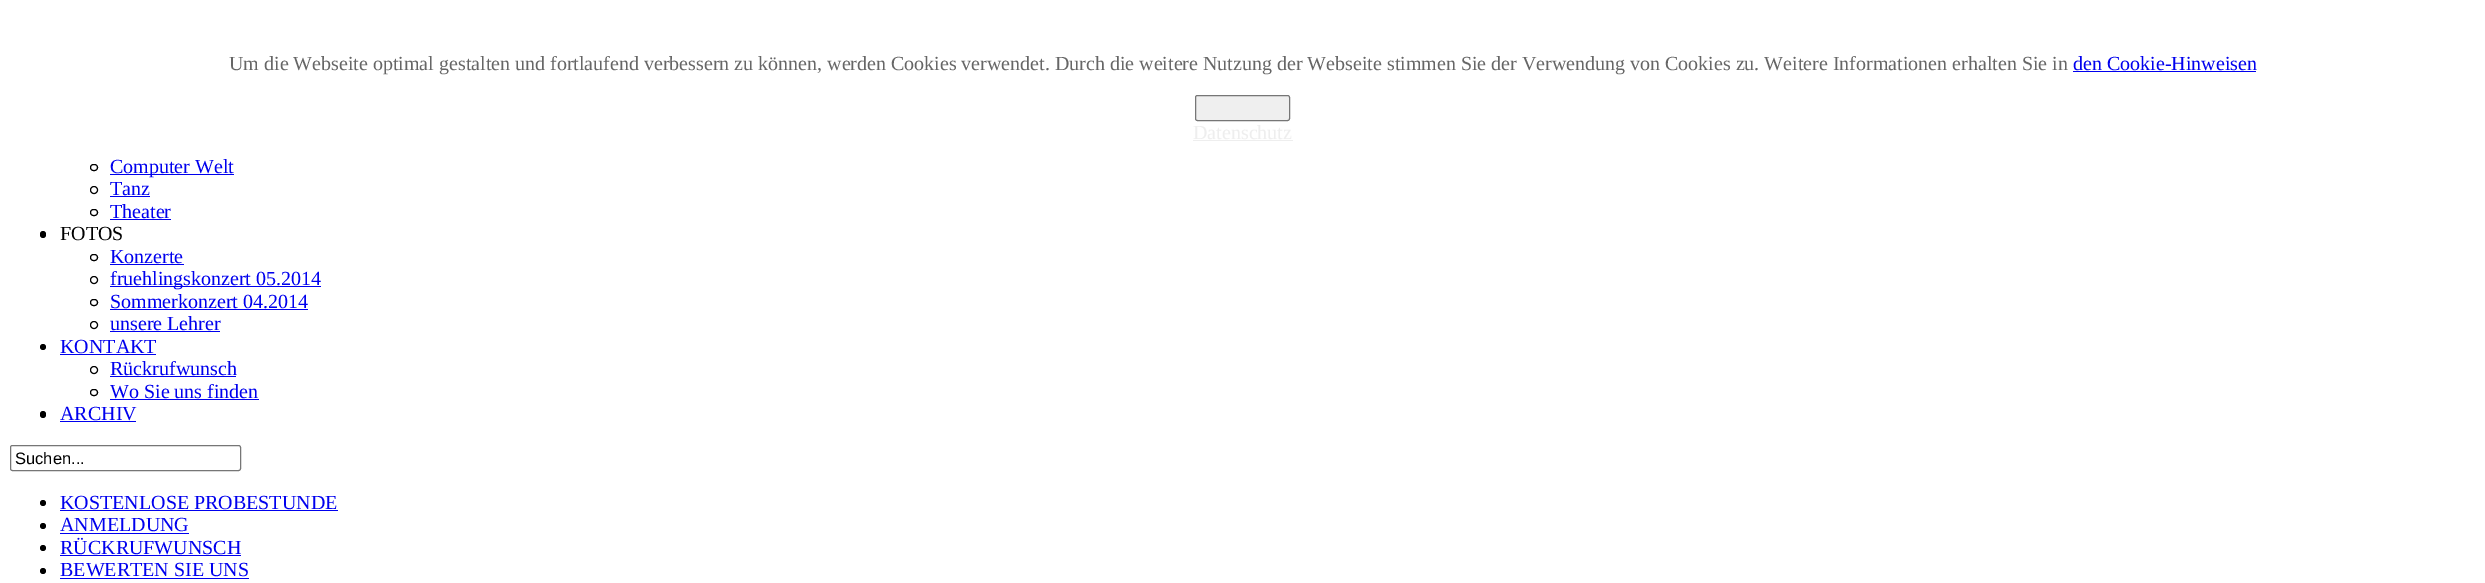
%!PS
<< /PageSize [2485 583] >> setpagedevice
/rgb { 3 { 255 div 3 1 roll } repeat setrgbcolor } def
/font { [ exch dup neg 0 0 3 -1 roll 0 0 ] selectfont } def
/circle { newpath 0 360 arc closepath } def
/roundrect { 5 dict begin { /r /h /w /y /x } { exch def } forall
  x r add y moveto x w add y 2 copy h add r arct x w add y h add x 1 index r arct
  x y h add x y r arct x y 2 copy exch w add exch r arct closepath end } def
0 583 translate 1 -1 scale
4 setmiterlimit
255 255 255 rgb
0 0 2485 583 rectfill
0 0 238 rgb
2073 71 183 1 rectfill
239 239 239 rgb
1195.5 95.5 94 25 2 roundrect gsave fill grestore
118 118 118 rgb
stroke
238 238 238 rgb
1193 140 100 1 rectfill
0 0 0 rgb
90.5 164.5 7 6 3 roundrect stroke
0 0 238 rgb
110 174 124 1 rectfill
0 0 0 rgb
94 190 3.5 circle stroke
0 0 238 rgb
110 196 40 1 rectfill
0 0 0 rgb
90.5 209.5 7 6 3 roundrect stroke
0 0 238 rgb
110 219 61 1 rectfill
0 0 0 rgb
40 231 6 7 3 roundrect fill
90.5 254.5 7 6 3 roundrect stroke
0 0 238 rgb
110 264 74 1 rectfill
0 0 0 rgb
94 280 3.5 circle stroke
0 0 238 rgb
110 286 211 1 rectfill
0 0 0 rgb
90.5 299.5 7 6 3 roundrect stroke
0 0 238 rgb
110 309 198 1 rectfill
0 0 0 rgb
94 325 3.5 circle stroke
0 0 238 rgb
110 331 110 1 rectfill
0 0 0 rgb
43 347 3 circle fill
0 0 238 rgb
60 354 96 1 rectfill
0 0 0 rgb
94 370 3.5 circle stroke
0 0 238 rgb
110 376 126 1 rectfill
0 0 0 rgb
90.5 389.5 7 6 3 roundrect stroke
0 0 238 rgb
110 399 149 1 rectfill
0 0 0 rgb
40 411 6 7 3 roundrect fill
0 0 238 rgb
60 421 76 1 rectfill
118 118 118 rgb
10.5 445.5 230 25 2 roundrect stroke
0 0 0 rgb
43 503 3 circle fill
0 0 238 rgb
60 510 278 1 rectfill
0 0 0 rgb
43 526 3 circle fill
0 0 238 rgb
60 533 129 1 rectfill
0 0 0 rgb
43 548 3 circle fill
0 0 238 rgb
60 555 181 1 rectfill
0 0 0 rgb
43 571 3 circle fill
0 0 238 rgb
60 578 189 1 rectfill
/LiberationSerif-Regular 20 font
102 102 102 rgb
229 70 moveto (Um die Webseite optimal gestalten und fortlaufend verbessern zu können, werden Cookies verwendet. Durch die weitere Nutzung der Webseite stimmen Sie der Verwendung von Cookies zu. Weitere Informationen erhalten Sie in) show
0 0 238 rgb
2073 70 moveto (den Cookie-Hinweisen) show
238 238 238 rgb
1193 139 moveto (Datenschutz) show
0 0 238 rgb
[
  [(Computer Welt) 110 173]
  [(Tanz) 110 195]
  [(Theater) 110 218]
] { aload pop moveto show } forall
0 0 0 rgb
60 240 moveto (FOTOS) show
0 0 238 rgb
[
  [(Konzerte) 110 263]
  [(fruehlingskonzert 05.2014) 110 285]
  [(Sommerkonzert 04.2014) 110 308]
  [(unsere Lehrer) 110 330]
  [(KONTAKT) 60 353]
  [(Rückrufwunsch) 110 375]
  [(Wo Sie uns finden) 110 398]
  [(ARCHIV) 60 420]
] { aload pop moveto show } forall
/LiberationSans-Regular 16.5 font
0 0 0 rgb
15 464 moveto (Suchen...) show
/LiberationSerif-Regular 20 font
0 0 238 rgb
[
  [(KOSTENLOSE PROBESTUNDE) 60 509]
  [(ANMELDUNG) 60 531]
  [(RÜCKRUFWUNSCH) 60 554]
  [(BEWERTEN SIE UNS) 60 576]
] { aload pop moveto show } forall
showpage
